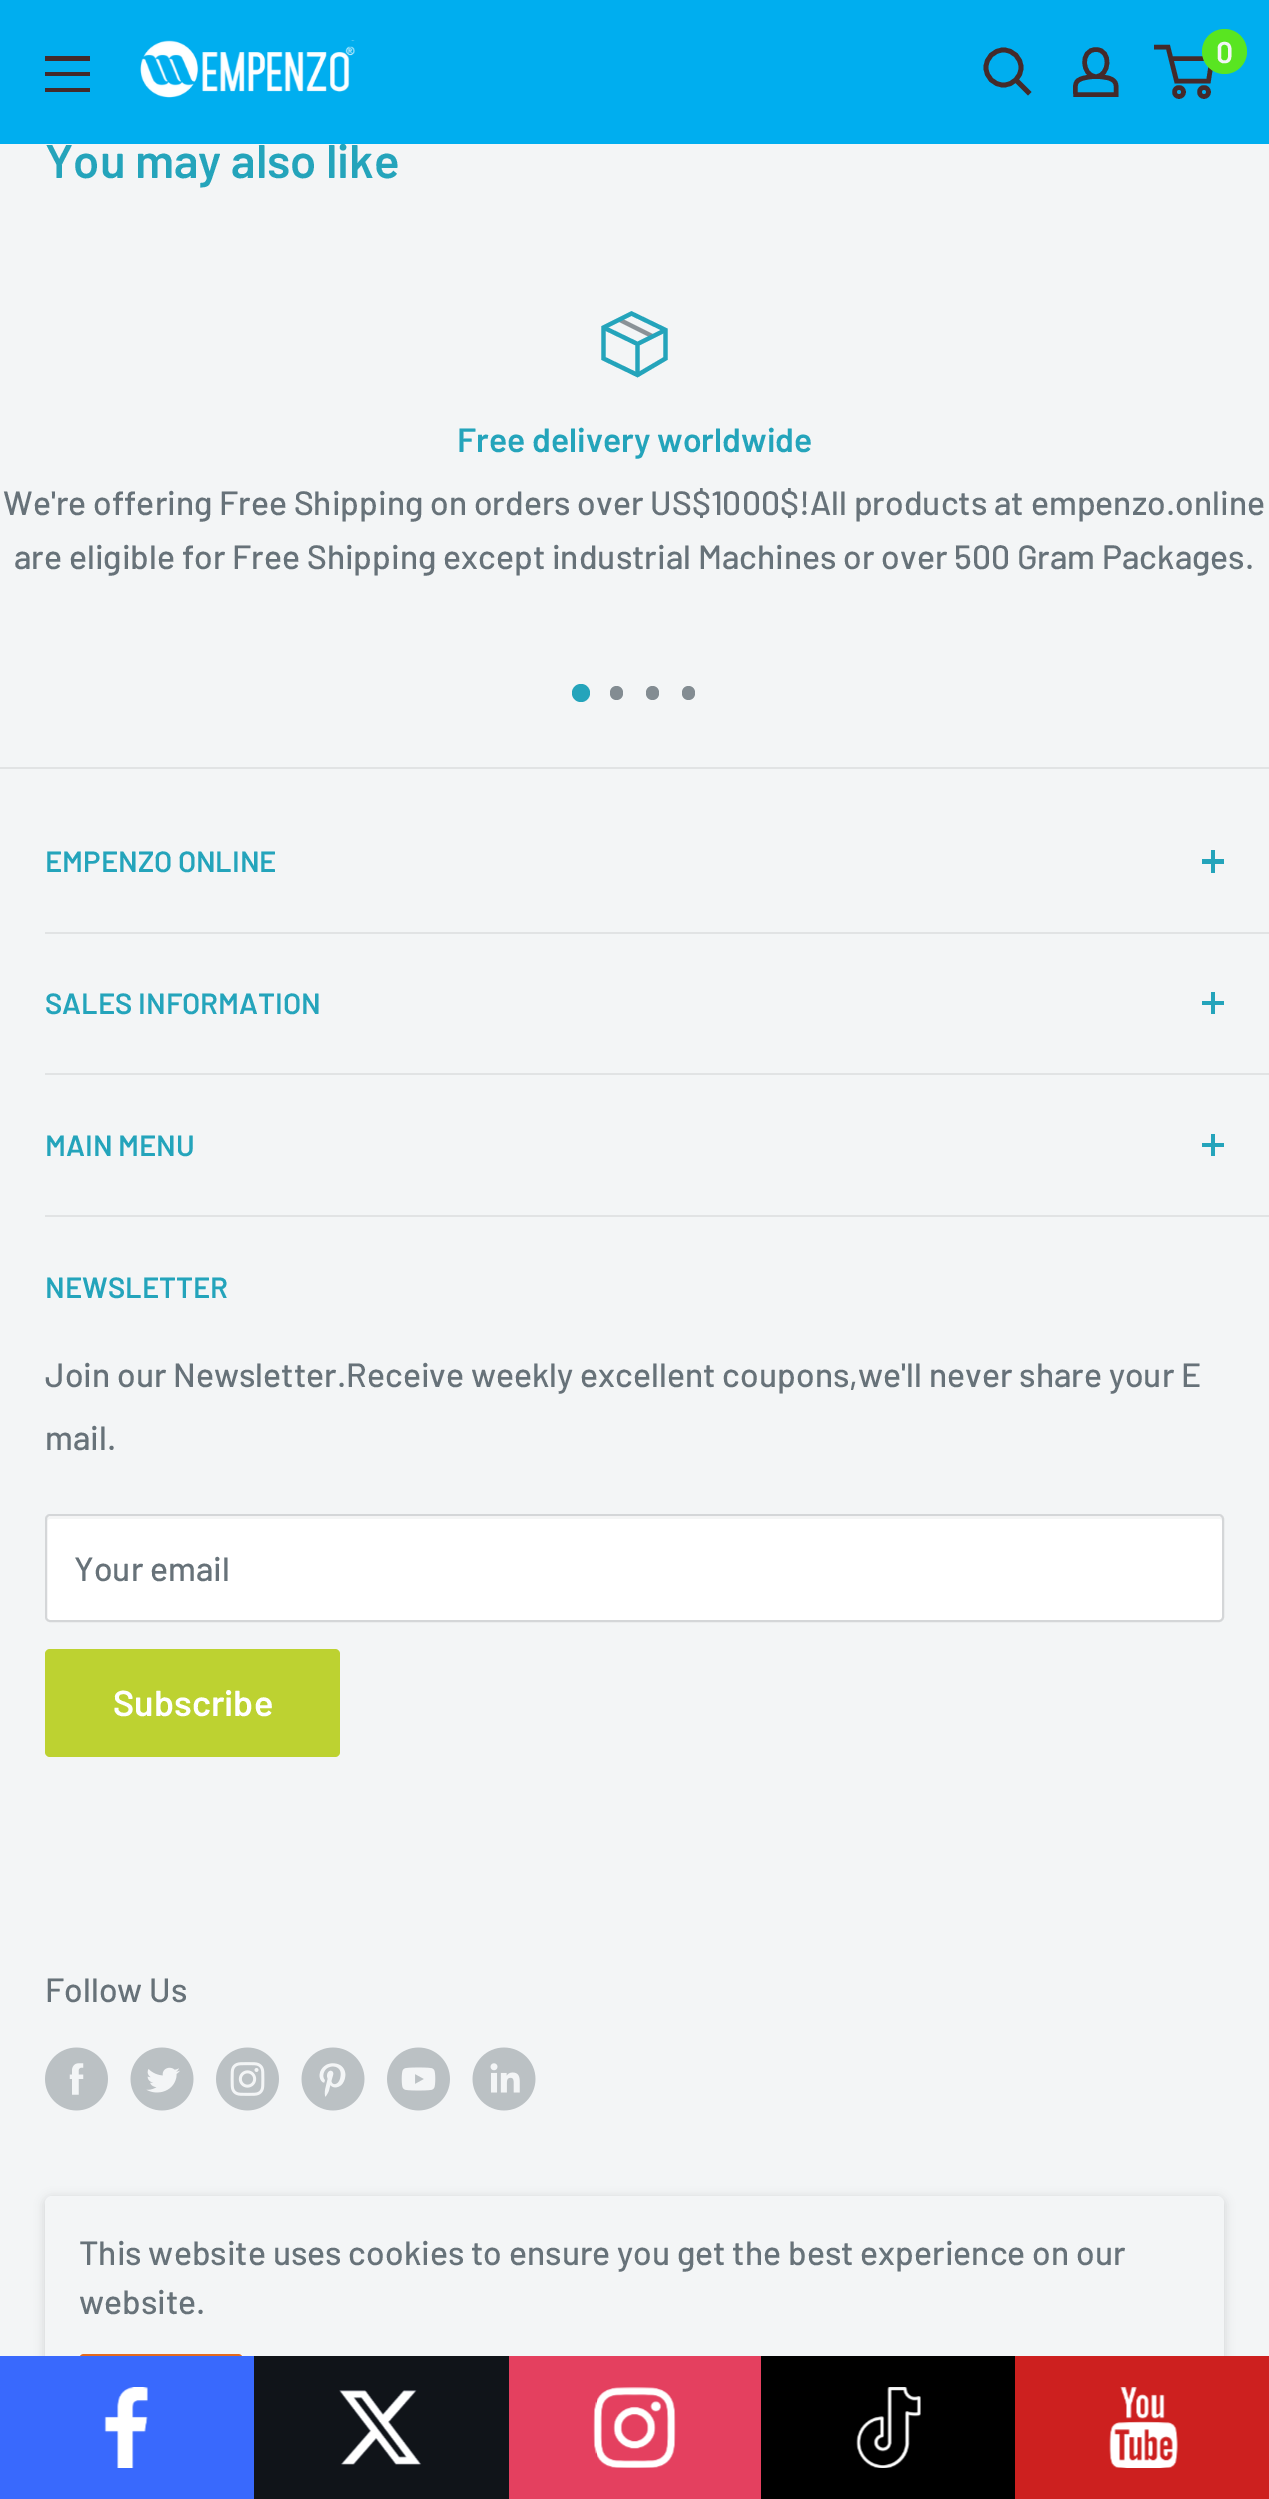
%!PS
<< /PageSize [1269 2499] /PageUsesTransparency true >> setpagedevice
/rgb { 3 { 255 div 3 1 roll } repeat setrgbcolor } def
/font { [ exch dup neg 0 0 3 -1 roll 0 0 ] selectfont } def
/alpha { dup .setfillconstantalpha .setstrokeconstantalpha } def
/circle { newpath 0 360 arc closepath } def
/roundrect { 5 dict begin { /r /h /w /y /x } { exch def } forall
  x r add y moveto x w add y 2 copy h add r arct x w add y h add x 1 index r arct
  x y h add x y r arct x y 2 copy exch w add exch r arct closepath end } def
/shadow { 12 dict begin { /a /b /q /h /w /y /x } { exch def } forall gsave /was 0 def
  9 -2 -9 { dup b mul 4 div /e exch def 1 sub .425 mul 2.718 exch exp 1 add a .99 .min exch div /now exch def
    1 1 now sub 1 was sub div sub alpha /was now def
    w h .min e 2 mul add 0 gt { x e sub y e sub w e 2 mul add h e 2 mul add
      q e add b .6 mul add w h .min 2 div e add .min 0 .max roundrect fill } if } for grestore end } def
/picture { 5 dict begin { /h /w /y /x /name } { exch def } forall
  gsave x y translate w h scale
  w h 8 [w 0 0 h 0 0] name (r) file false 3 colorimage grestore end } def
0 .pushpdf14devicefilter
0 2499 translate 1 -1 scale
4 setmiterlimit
243 245 246 rgb
0 0 1269 2499 rectfill
138 146 151 rgb
4.2 setlinewidth
619 319.5 moveto 653 336.5 lineto stroke
36 164 187 rgb
665.5 330 moveto 637.5 344 lineto 603.5 327.5 lineto 637.5 344 moveto 637.5 375 lineto stroke
2 setlinecap
665.5 330 moveto 665.5 358.5 lineto 637.5 375 lineto 603.5 358.5 lineto 603.5 327.5 lineto 631.5 313.5 lineto closepath stroke
581 693 9 circle fill
131 140 146 rgb
610 686 13 14 6.5 roundrect fill
646 686 13 14 6.5 roundrect fill
682 686 13 14 6.5 roundrect fill
[
  [0 767 1269 2 225 227 228]
  [45 932 1224 2 225 227 228]
  [1211 850 4 23 36 164 187]
  [1202 859 22 5 36 164 187]
  [45 1073 1224 2 225 227 228]
  [1211 992 4 22 36 164 187]
  [1202 1001 22 4 36 164 187]
  [45 1215 1224 2 225 227 228]
  [1211 1134 4 22 36 164 187]
  [1202 1143 22 4 36 164 187]
] { aload pop rgb rectfill } forall
255 255 255 rgb
45 1514 1179 108 5 roundrect fill
244 245 245 rgb
50 1519 moveto 1220 1519 lineto 1221 1519 1222 1520 1222 1521 curveto 1222 1519 1222 1517 1220 1517 curveto 48 1517 lineto 47 1518 lineto 47 1521 lineto 47 1520 48 1519 50 1519 curveto closepath fill
212 214 216 rgb
2 setlinewidth
0 setlinecap
46 1515 1177 106 4 roundrect stroke
189 210 49 rgb
45 1649 295 108 5 roundrect fill
(img/2.rgb) 45 2047 63 64 picture
(img/3.rgb) 130 2047 64 64 picture
(img/4.rgb) 216 2047 63 64 picture
(img/5.rgb) 301 2047 64 64 picture
(img/6.rgb) 387 2047 63 64 picture
(img/7.rgb) 472 2047 64 64 picture
0 0 0 rgb
43 2196 1183 263 9 4.5 0.1 shadow
243 245 246 rgb
45 2196 1179 259 7 roundrect fill
229 106 28 rgb
79 2354 164 67 5 roundrect fill
57 105 253 rgb
0 2356 254 143 rectfill
(img/8.rgb) 104 2387 44 81 picture
16 20 25 rgb
254 2356 255 143 rectfill
(img/9.rgb) 339 2390 83 75 picture
228 64 95 rgb
509 2356 252 143 rectfill
(img/10.rgb) 593 2387 83 81 picture
0 0 0 rgb
761 2356 254 143 rectfill
(img/11.rgb) 856 2387 65 81 picture
205 32 31 rgb
1015 2356 254 143 rectfill
(img/12.rgb) 1109 2387 69 81 picture
/Barlow-SemiBold 47.25 font
36 164 187 rgb
45 178 moveto (You may also like) show
0 174 239 rgb
0 0 1269 144 rectfill
68 42 42 rgb
4.5 setlinewidth
1170.5 58.5 moveto 1212 58.5 lineto 1208.5 81 lineto 1176.5 81 lineto 1168 47 lineto 1154 47 lineto stroke
89 229 33 rgb
1224.5 51.5 22.5 circle fill
/Barlow-SemiBold 30 font
243 245 246 rgb
1216 63 moveto (0) show
68 42 42 rgb
1204 92 4.5 circle stroke
1179 92 4.5 circle stroke
1096 76.5 moveto 1100 76.5 1104 77 1108.5 78 curveto 1118 81 1116 86 1116 94.5 curveto 1075.5 94.5 lineto 1075.5 85.5 1073.5 80.5 1084 78 curveto 1088 77 1092 76.5 1096 76.5 curveto closepath 1096 76.5 moveto 1082 76.5 1079.5 49.5 1096 49.5 curveto 1112 49.5 1109.5 76.5 1096 76.5 curveto closepath stroke
45 88 moveto 90 88 lineto 90 92 lineto 45 92 lineto closepath 45 56 moveto 90 56 lineto 90 61 lineto 45 61 lineto closepath 45 72 moveto 90 72 lineto 90 76 lineto 45 76 lineto closepath eofill
4.7 setlinewidth
2 setlinecap
1028 92 moveto 1016 80 lineto stroke
0 setlinecap
1003.5 67.5 17.5 circle stroke
(img/1.rgb) 140 40 215 58 picture
/Barlow-SemiBold 33.75 font
36 164 187 rgb
457 452 moveto (Free delivery worldwide) show
/Barlow-Medium 33.75 font
103 114 121 rgb
3 515 moveto (We're offering Free Shipping on orders over US$1000$!All products at empenzo.online) show
14 569 moveto (are eligible for Free Shipping except industrial Machines or over 500 Gram Packages.) show
/Barlow-SemiBold 29.25 font
36 164 187 rgb
[
  [(EMPENZO ONLINE) 45 872]
  [(SALES INFORMATION) 45 1014]
  [(MAIN MENU) 45 1156]
  [(NEWSLETTER) 45 1298]
] { aload pop moveto show } forall
/Barlow-Medium 33.75 font
103 114 121 rgb
[
  [(Join our Newsletter.Receive weekly excellent coupons,we'll never share your E) 45 1387]
  [(mail.) 45 1450]
  [(Your email) 74 1581]
] { aload pop moveto show } forall
/Barlow-SemiBold 36 font
255 255 255 rgb
113 1716 moveto (Subscribe) show
/Barlow-Medium 33.75 font
103 114 121 rgb
[
  [(Follow Us) 45 2002]
  [(This website uses cookies to ensure you get the best experience on our) 79 2265]
  [(website.) 79 2314]
] { aload pop moveto show } forall
.poppdf14devicefilter showpage
